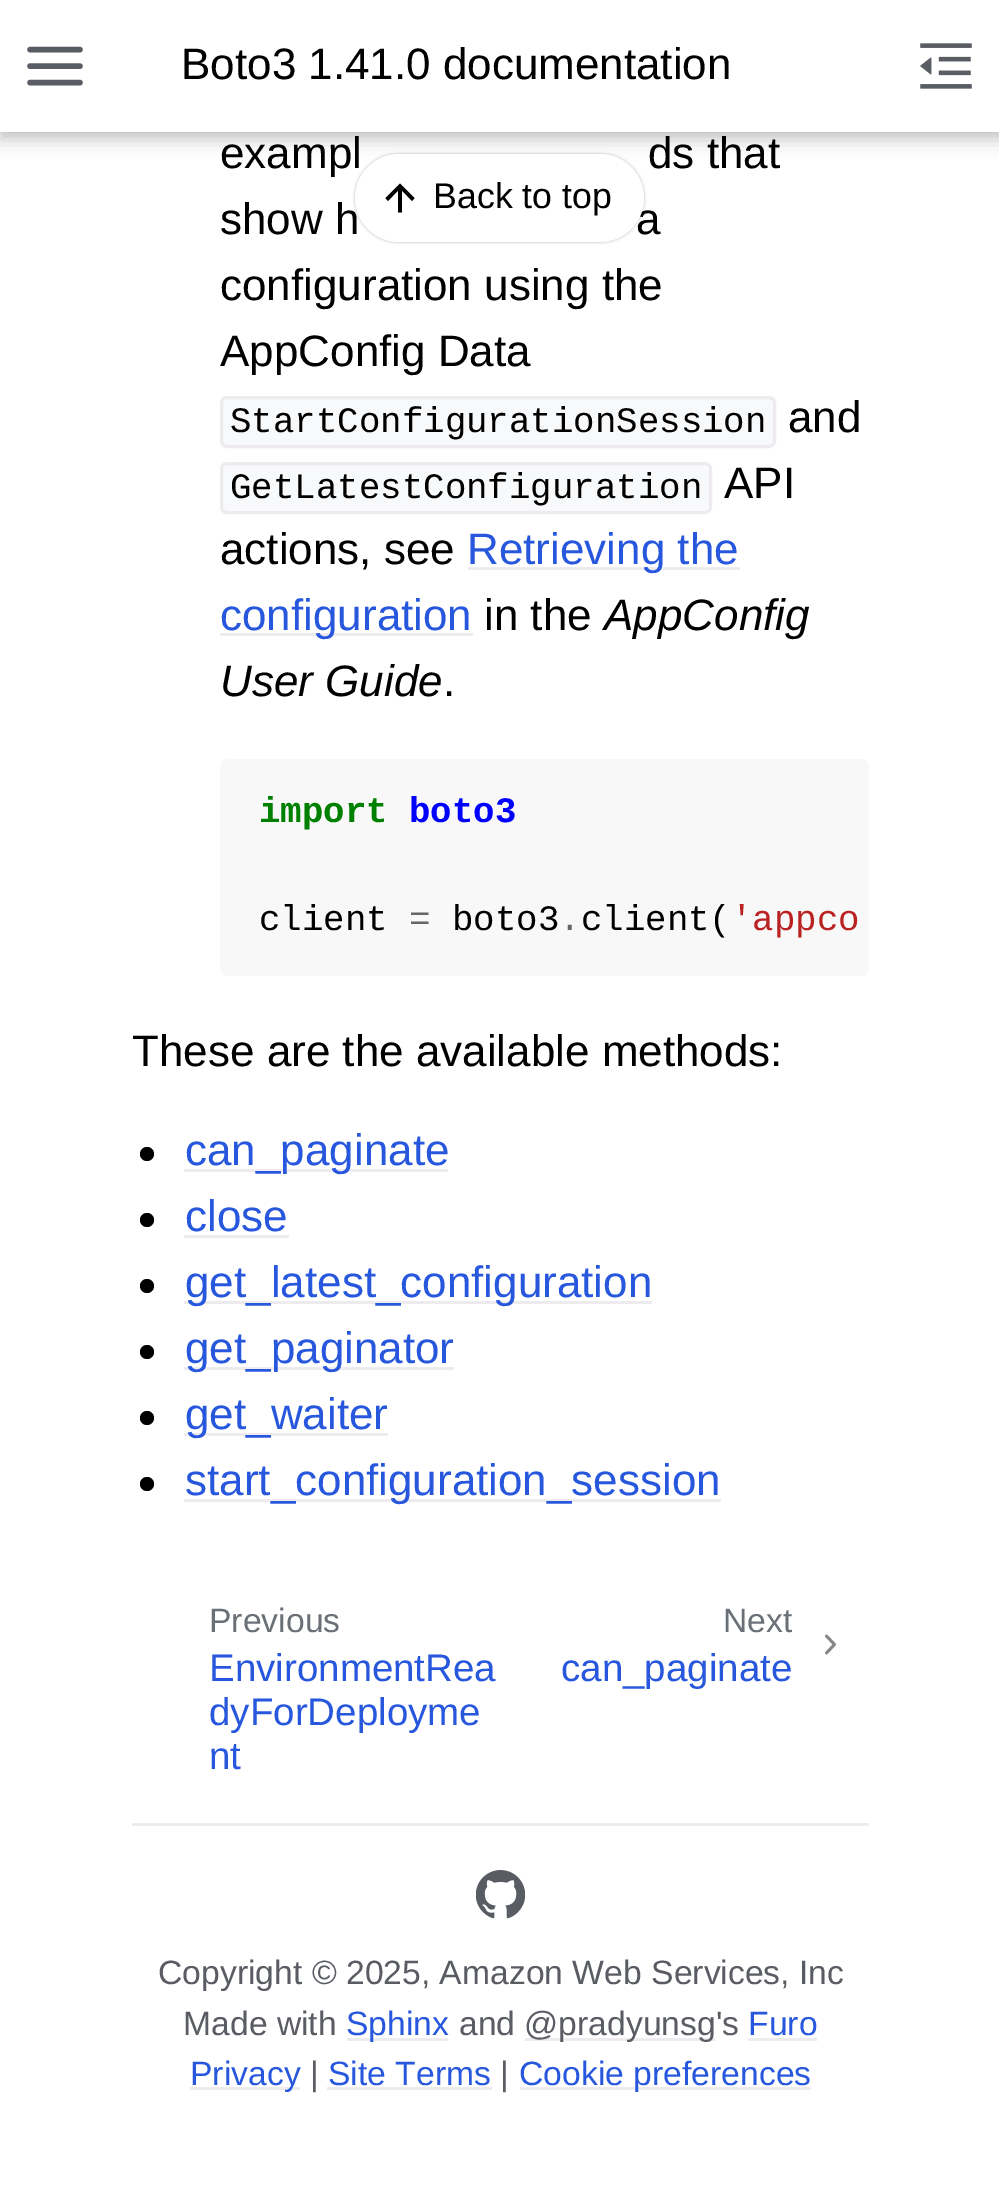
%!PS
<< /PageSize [999 2187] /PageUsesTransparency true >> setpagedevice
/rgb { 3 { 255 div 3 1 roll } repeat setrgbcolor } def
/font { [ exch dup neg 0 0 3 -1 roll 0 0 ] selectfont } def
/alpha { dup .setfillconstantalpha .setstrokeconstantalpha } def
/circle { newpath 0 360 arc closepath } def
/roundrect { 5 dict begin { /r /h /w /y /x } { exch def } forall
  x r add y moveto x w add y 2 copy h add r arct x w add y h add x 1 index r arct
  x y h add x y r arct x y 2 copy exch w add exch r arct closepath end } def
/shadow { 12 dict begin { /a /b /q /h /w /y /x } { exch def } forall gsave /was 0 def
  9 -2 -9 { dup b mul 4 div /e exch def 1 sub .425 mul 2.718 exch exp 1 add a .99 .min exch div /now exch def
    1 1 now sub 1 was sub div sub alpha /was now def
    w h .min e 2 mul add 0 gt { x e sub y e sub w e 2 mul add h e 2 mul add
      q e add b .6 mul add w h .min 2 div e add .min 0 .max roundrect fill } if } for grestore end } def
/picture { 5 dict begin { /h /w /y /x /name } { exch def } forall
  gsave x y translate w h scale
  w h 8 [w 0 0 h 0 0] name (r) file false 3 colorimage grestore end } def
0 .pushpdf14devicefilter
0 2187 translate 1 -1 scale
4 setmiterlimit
255 255 255 rgb
0 0 999 2187 rectfill
0 0 0 rgb
0 8 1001 132 0 9 0.2 shadow
0 0 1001 132 0 4.5 0.1 shadow
255 255 255 rgb
0 0 999 132 rectfill
90 92 99 rgb
5.5 setlinewidth
1 setlinecap
1 setlinejoin
30 66 moveto 80 66 lineto 30 49.5 moveto 80 49.5 lineto 30 82.5 moveto 80 82.5 lineto stroke
(img/1.rgb) 920 43 52 46 picture
248 249 251 rgb
221.5 397.5 553 49 5.5 roundrect gsave fill grestore
238 235 238 rgb
3 setlinewidth
0 setlinecap
0 setlinejoin
stroke
248 249 251 rgb
221.5 463.5 489 49 5.5 roundrect gsave fill grestore
238 235 238 rgb
stroke
468 567 272 3 rectfill
220 633 253 3 rectfill
248 248 248 rgb
220 759 649 217 8 roundrect fill
0 0 0 rgb
147 1154 7 circle fill
238 235 238 rgb
184 1169 264 3 rectfill
0 0 0 rgb
147 1220 7 circle fill
238 235 238 rgb
184 1235 105 3 rectfill
0 0 0 rgb
147 1286 7 circle fill
238 235 238 rgb
184 1301 468 3 rectfill
0 0 0 rgb
147 1352 7 circle fill
238 235 238 rgb
184 1367 270 3 rectfill
0 0 0 rgb
147 1418 7 circle fill
238 235 238 rgb
184 1433 204 3 rectfill
0 0 0 rgb
147 1484 7 circle fill
238 235 238 rgb
184 1499 537 3 rectfill
107 114 128 rgb
355 154 289 88 44 1.5 0.5 shadow
135 135 135 rgb
2.8 setlinewidth
1 setlinecap
1 setlinejoin
826.5 1653 moveto 834.5 1644.5 lineto 826.5 1636 lineto stroke
238 235 238 rgb
132 1823 737 3 rectfill
(img/2.rgb) 476 1870 49 49 picture
[
  [347 2038 101 3 238 235 238]
  [525 2038 190 3 238 235 238]
  [748 2038 69 3 238 235 238]
  [190 2087 110 3 238 235 238]
  [327 2087 165 3 238 235 238]
  [520 2087 291 3 238 235 238]
] { aload pop rgb rectfill } forall
/LiberationSans-Regular 44 font
0 0 0 rgb
[
  [(Boto3 1.41.0 documentation) 181 79]
  [(exampl) 220 168]
  [(ds that) 648 168]
  [(show h) 220 234]
  [(a) 636 234]
  [(configuration using the) 220 300]
  [(AppConfig Data) 220 366]
] { aload pop moveto show } forall
/LiberationMono-Regular 35.75 font
230 432 moveto (StartConfigurationSession) show
/LiberationSans-Regular 44 font
788 432 moveto (and) show
/LiberationMono-Regular 35.75 font
230 498 moveto (GetLatestConfiguration) show
/LiberationSans-Regular 44 font
724 498 moveto (API) show
220 564 moveto (actions, see) show
39 87 221 rgb
467 564 moveto (Retrieving the) show
220 630 moveto (configuration) show
0 0 0 rgb
484 630 moveto (in the) show
/LiberationSans-Italic 44 font
604 630 moveto (AppConfig) show
220 696 moveto (User Guide) show
/LiberationSans-Regular 44 font
443 696 moveto (.) show
/LiberationMono-Bold 35.75 font
0 128 0 rgb
259 822 moveto (import) show
0 0 255 rgb
409 822 moveto (boto3) show
/LiberationMono-Regular 35.75 font
0 0 0 rgb
259 930 moveto (client) show
102 102 102 rgb
409 930 moveto (=) show
0 0 0 rgb
452 930 moveto (boto3 client\() show
186 33 33 rgb
731 930 moveto ('appco) show
102 102 102 rgb
559 930 moveto (.) show
/LiberationSans-Regular 44 font
0 0 0 rgb
132 1066 moveto (These are the available methods:) show
39 87 221 rgb
[
  [(can_paginate) 185 1165]
  [(close) 185 1231]
  [(get_latest_configuration) 185 1297]
  [(get_paginator) 185 1363]
  [(get_waiter) 185 1429]
  [(start_configuration_session) 185 1495]
] { aload pop moveto show } forall
255 255 255 rgb
355 154 289 88 44 roundrect fill
0 0 0 rgb
402 212.5 moveto 398 212.5 lineto 398 190.5 lineto 388 201 lineto 385.5 198 lineto 400 183.5 lineto 414.5 198 lineto 412 201 lineto 402 190.5 lineto closepath fill
/LiberationSans-Regular 35.75 font
433 208 moveto (Back to top) show
/LiberationSans-Regular 33.7 font
107 111 118 rgb
209 1632 moveto (Previous) show
/LiberationSans-Regular 38.5 font
39 87 221 rgb
[
  [(EnvironmentRea) 209 1681]
  [(dyForDeployme) 209 1725]
  [(nt) 209 1769]
] { aload pop moveto show } forall
/LiberationSans-Regular 33.7 font
107 111 118 rgb
723 1632 moveto (Next) show
/LiberationSans-Regular 38.5 font
39 87 221 rgb
561 1681 moveto (can_paginate) show
/LiberationSans-Regular 33.7 font
90 92 99 rgb
158 1984 moveto (Copyright © 2025, Amazon Web Services, Inc) show
183 2035 moveto (Made with) show
39 87 221 rgb
346 2035 moveto (Sphinx) show
90 92 99 rgb
459 2035 moveto (and) show
524 2035 moveto (@pradyunsg's) show
39 87 221 rgb
748 2035 moveto (Furo) show
190 2085 moveto (Privacy) show
90 92 99 rgb
310 2085 moveto (|) show
39 87 221 rgb
328 2085 moveto (Site Terms) show
90 92 99 rgb
500 2085 moveto (|) show
39 87 221 rgb
519 2085 moveto (Cookie preferences) show
.poppdf14devicefilter showpage
